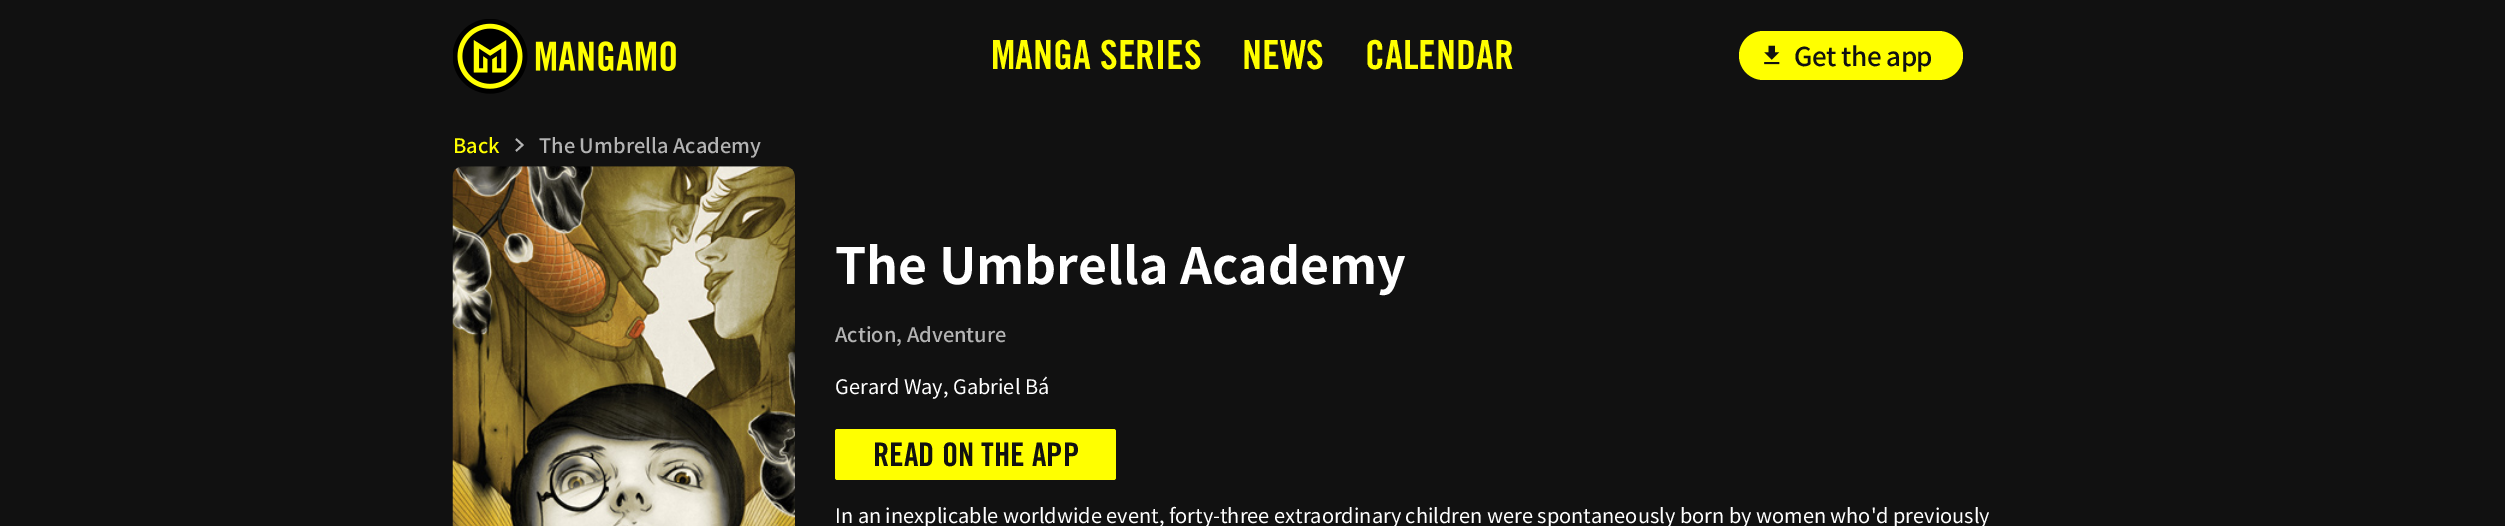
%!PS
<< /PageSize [2505 526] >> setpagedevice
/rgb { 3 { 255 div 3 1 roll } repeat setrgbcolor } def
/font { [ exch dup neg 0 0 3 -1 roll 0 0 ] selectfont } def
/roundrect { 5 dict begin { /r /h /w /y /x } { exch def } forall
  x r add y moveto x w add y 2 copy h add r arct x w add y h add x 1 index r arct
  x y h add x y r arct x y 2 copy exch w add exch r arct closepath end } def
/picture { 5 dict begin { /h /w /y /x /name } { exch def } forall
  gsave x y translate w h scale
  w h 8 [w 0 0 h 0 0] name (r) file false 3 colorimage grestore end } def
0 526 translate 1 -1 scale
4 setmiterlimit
17 17 17 rgb
0 0 2505 526 rectfill
(img/1.rgb) 453 19 223 75 picture
255 255 0 rgb
1739 31 224 49 24.5 roundrect fill
(img/2.rgb) 1764 45 16 20 picture
179 179 179 rgb
1.9 setlinewidth
516 139 moveto 522.5 145 lineto 516 151 lineto stroke
(img/3.rgb) 452 166 343 360 picture
255 255 0 rgb
835 429 281 51 2.5 roundrect fill
/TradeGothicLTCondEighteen-Bold 40 font
[
  [(MANGA SERIES) 991 69]
  [(NEWS) 1242 69]
  [(CALENDAR) 1365 69]
] { aload pop moveto show } forall
/NotoSansJP-Thin 26 font
17 17 17 rgb
1794 66 moveto -0.5 0 (Get the app) ashow
/NotoSansJP-Thin 20 font
255 255 0 rgb
453 153 moveto (Back) show
179 179 179 rgb
539 153 moveto (The Umbrella Academy) show
/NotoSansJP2-Thin 50 font
255 255 255 rgb
835 284 moveto (The Umbrella Academy) show
/NotoSansJP-Thin 20 font
179 179 179 rgb
835 342 moveto (Action, Adventure) show
/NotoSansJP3-Thin 20 font
255 255 255 rgb
835 394 moveto (Gerard Way, Gabriel Bá) show
/TradeGothicLTCondEighteen-Bold 32.5 font
17 17 17 rgb
873 466 moveto (READ ON THE APP) show
/NotoSansJP3-Thin 20 font
255 255 255 rgb
835 523 moveto (In an inexplicable worldwide event, forty-three extraordinary children were spontaneously born by women who'd previously) show
showpage
